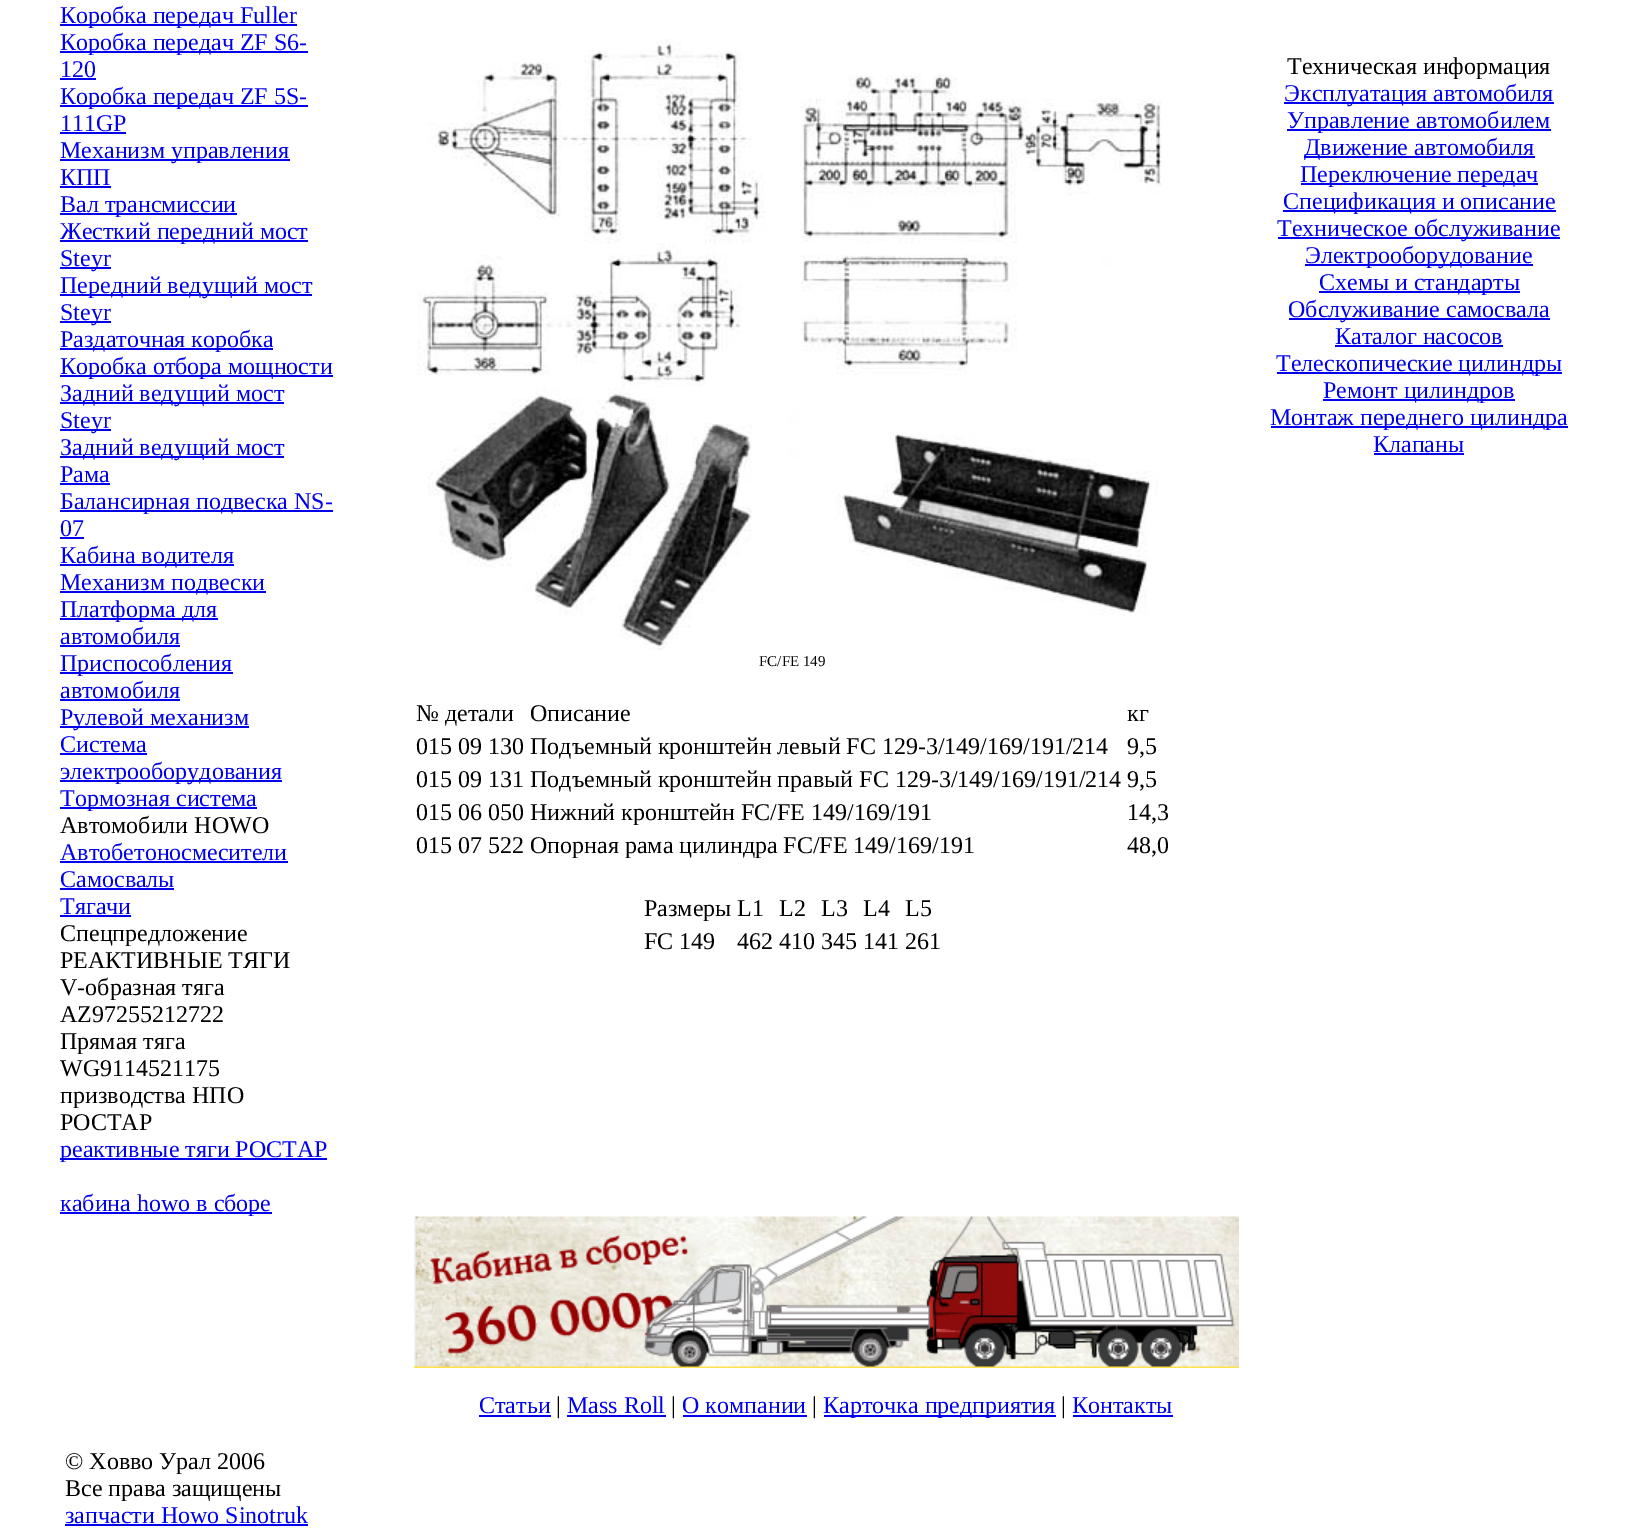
%!PS
<< /PageSize [1651 1537] >> setpagedevice
/rgb { 3 { 255 div 3 1 roll } repeat setrgbcolor } def
/font { [ exch dup neg 0 0 3 -1 roll 0 0 ] selectfont } def
/picture { 5 dict begin { /h /w /y /x /name } { exch def } forall
  gsave x y translate w h scale
  w h 8 [w 0 0 h 0 0] name (r) file false 3 colorimage grestore end } def
0 1537 translate 1 -1 scale
4 setmiterlimit
255 255 255 rgb
0 0 1651 1537 rectfill
[
  [60 24 237 2 0 0 238]
  [60 51 248 2 0 0 238]
  [60 78 36 2 0 0 238]
  [60 105 248 2 0 0 238]
  [60 132 66 2 0 0 238]
  [60 159 230 2 0 0 238]
  [60 186 51 2 0 0 238]
  [60 213 177 2 0 0 238]
  [60 240 248 2 0 0 238]
  [60 267 51 2 0 0 238]
  [60 294 252 2 0 0 238]
  [60 321 51 2 0 0 238]
  [60 348 213 2 0 0 238]
  [60 375 273 2 0 0 238]
  [60 402 224 2 0 0 238]
  [60 429 51 2 0 0 238]
  [60 456 224 2 0 0 238]
  [60 483 50 2 0 0 238]
  [60 510 273 2 0 0 238]
  [60 537 24 2 0 0 238]
  [60 564 174 2 0 0 238]
  [60 591 206 2 0 0 238]
  [60 618 158 2 0 0 238]
  [60 645 120 2 0 0 238]
  [60 672 173 2 0 0 238]
  [60 699 120 2 0 0 238]
  [60 726 189 2 0 0 238]
  [60 753 87 2 0 0 238]
  [60 780 222 2 0 0 238]
  [60 807 197 2 0 0 238]
  [60 861 228 2 0 0 238]
  [60 888 114 2 0 0 238]
  [60 915 71 2 0 0 238]
  [60 1158 267 2 0 0 238]
  [60 1212 212 2 0 0 238]
  [1284 102 270 2 0 0 238]
  [1287 129 264 2 0 0 238]
  [1304 156 231 2 0 0 238]
  [1301 183 237 2 0 0 238]
  [1283 210 273 2 0 0 238]
  [1278 237 282 2 0 0 238]
  [1305 264 228 2 0 0 238]
  [1319 291 201 2 0 0 238]
  [1289 318 261 2 0 0 238]
  [1335 345 168 2 0 0 238]
  [1277 372 285 2 0 0 238]
  [1323 399 192 2 0 0 238]
  [1271 426 297 2 0 0 238]
  [1374 453 90 2 0 0 238]
] { aload pop rgb rectfill } forall
(img/1.rgb) 417 39 745 348 picture
(img/2.rgb) 427 387 731 263 picture
(img/3.rgb) 414 1216 825 152 picture
[
  [479 1415 72 2 0 0 238]
  [567 1415 99 2 0 0 238]
  [683 1415 124 2 0 0 238]
  [824 1415 232 2 0 0 238]
  [1073 1415 100 2 0 0 238]
  [65 1524 243 2 0 0 238]
] { aload pop rgb rectfill } forall
/LiberationSerif-Regular 24 font
[
  [(Коробка передач Fuller) 60 23]
  [(Коробка передач ZF S6-) 60 50]
  [(120) 60 77]
  [(Коробка передач ZF 5S-) 60 104]
  [(111GP) 60 131]
  [(Механизм управления) 60 158]
  [(КПП) 60 185]
  [(Вал трансмиссии) 60 212]
  [(Жесткий передний мост) 60 239]
  [(Steyr) 60 266]
  [(Передний ведущий мост) 60 293]
  [(Steyr) 60 320]
  [(Раздаточная коробка) 60 347]
  [(Коробка отбора мощности) 60 374]
  [(Задний ведущий мост) 60 401]
  [(Steyr) 60 428]
  [(Задний ведущий мост) 60 455]
  [(Рама) 60 482]
  [(Балансирная подвеска NS-) 60 509]
  [(07) 60 536]
  [(Кабина водителя) 60 563]
  [(Механизм подвески) 60 590]
  [(Платформа для) 60 617]
  [(автомобиля) 60 644]
  [(Приспособления) 60 671]
  [(автомобиля) 60 698]
  [(Рулевой механизм) 60 725]
  [(Система) 60 752]
  [(электрооборудования) 60 779]
  [(Тормозная система) 60 806]
] { aload pop moveto show } forall
0 0 0 rgb
60 833 moveto (Автомобили HOWO) show
0 0 238 rgb
[
  [(Автобетоносмесители) 60 860]
  [(Самосвалы) 60 887]
  [(Тягачи) 60 914]
] { aload pop moveto show } forall
0 0 0 rgb
[
  [(Спецпредложение) 60 941]
  [(РЕАКТИВНЫЕ ТЯГИ) 60 968]
  [(V-образная тяга) 60 995]
  [(AZ97255212722) 60 1022]
  [(Прямая тяга) 60 1049]
  [(WG9114521175) 60 1076]
  [(призводства НПО) 60 1103]
  [(РОСТАР) 60 1130]
] { aload pop moveto show } forall
0 0 238 rgb
60 1157 moveto (реактивные тяги РОСТАР) show
60 1211 moveto (кабина howo в сборе) show
0 0 0 rgb
1287 74 moveto (Техническая информация) show
0 0 238 rgb
[
  [(Эксплуатация автомобиля) 1284 101]
  [(Управление автомобилем) 1287 128]
  [(Движение автомобиля) 1304 155]
  [(Переключение передач) 1300 182]
  [(Спецификация и описание) 1283 209]
  [(Техническое обслуживание) 1277 236]
  [(Электрооборудование) 1305 263]
  [(Схемы и стандарты) 1319 290]
  [(Обслуживание самосвала) 1288 317]
  [(Каталог насосов) 1335 344]
  [(Телескопические цилиндры) 1276 371]
  [(Ремонт цилиндров) 1323 398]
  [(Монтаж переднего цилиндра) 1270 425]
  [(Клапаны) 1373 452]
] { aload pop moveto show } forall
/LiberationSerif-Regular 15 font
0 0 0 rgb
759 666 moveto (FC/FE 149) show
/LiberationSerif-Regular 24 font
[
  [(№ детали) 416 721]
  [(Описание) 530 721]
  [(кг) 1127 721]
  [(015 09 130 Подъемный кронштейн левый FC 129-3/149/169/191/214) 416 754]
  [(9,5) 1127 754]
  [(015 09 131 Подъемный кронштейн правый FC 129-3/149/169/191/214 9,5) 416 787]
  [(015 06 050 Нижний кронштейн FC/FE 149/169/191) 416 820]
  [(14,3) 1127 820]
  [(015 07 522 Опорная рама цилиндра FC/FE 149/169/191) 416 853]
  [(48,0) 1127 853]
  [(Размеры L1) 644 916]
  [(L2) 779 916]
  [(L3) 821 916]
  [(L4) 863 916]
  [(L5) 905 916]
  [(FC 149) 644 949]
  [(462 410 345 141 261) 737 949]
] { aload pop moveto show } forall
0 0 238 rgb
479 1413 moveto (Статьи) show
0 0 0 rgb
556 1413 moveto (|) show
0 0 238 rgb
567 1413 moveto (Mass Roll) show
0 0 0 rgb
671 1413 moveto (|) show
0 0 238 rgb
682 1413 moveto (О компании) show
0 0 0 rgb
812 1413 moveto (|) show
0 0 238 rgb
823 1413 moveto (Карточка предприятия) show
0 0 0 rgb
1061 1413 moveto (|) show
0 0 238 rgb
1072 1413 moveto (Контакты) show
0 0 0 rgb
65 1469 moveto (© Ховво Урал 2006) show
65 1496 moveto (Все права защищены) show
0 0 238 rgb
65 1523 moveto (запчасти Howo Sinotruk) show
showpage
